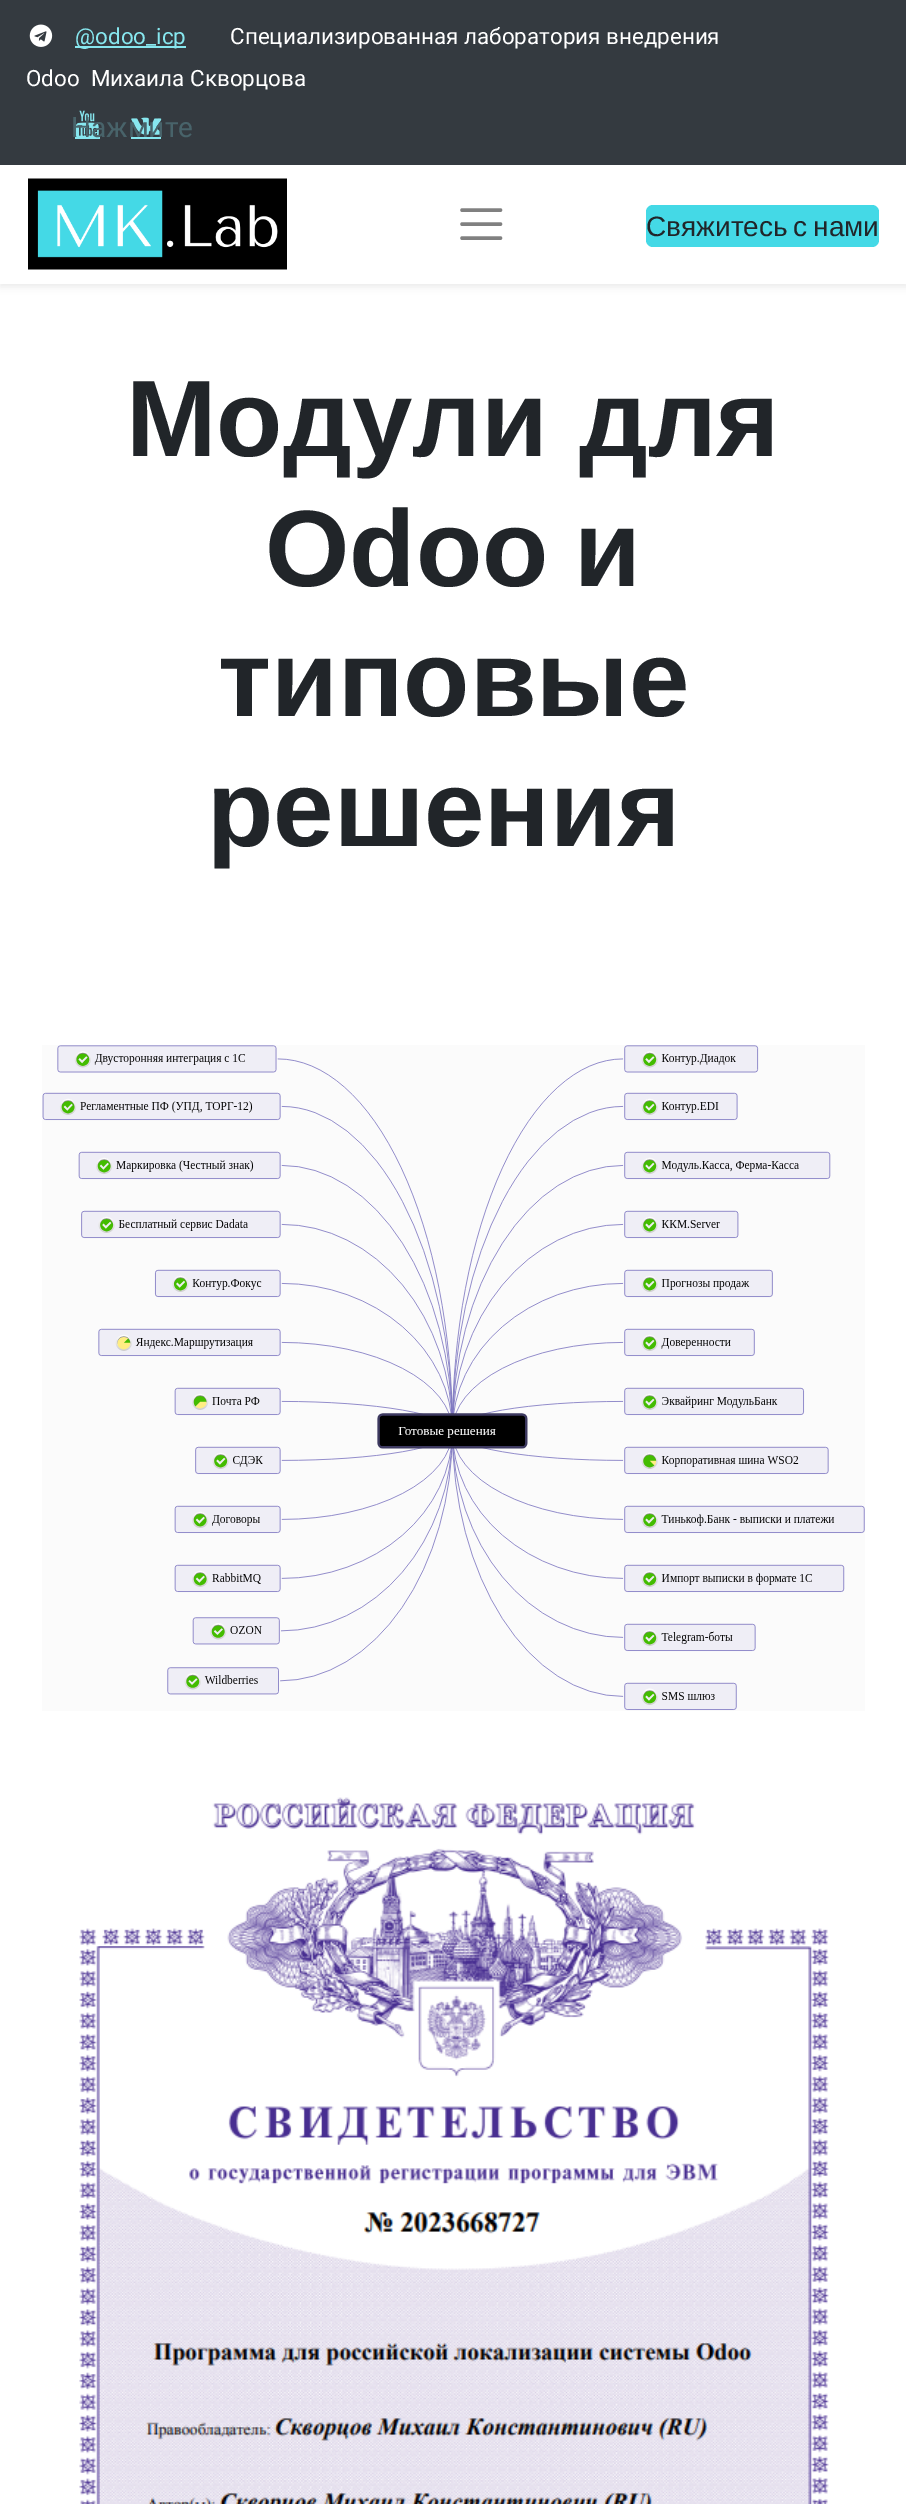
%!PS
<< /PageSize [906 2504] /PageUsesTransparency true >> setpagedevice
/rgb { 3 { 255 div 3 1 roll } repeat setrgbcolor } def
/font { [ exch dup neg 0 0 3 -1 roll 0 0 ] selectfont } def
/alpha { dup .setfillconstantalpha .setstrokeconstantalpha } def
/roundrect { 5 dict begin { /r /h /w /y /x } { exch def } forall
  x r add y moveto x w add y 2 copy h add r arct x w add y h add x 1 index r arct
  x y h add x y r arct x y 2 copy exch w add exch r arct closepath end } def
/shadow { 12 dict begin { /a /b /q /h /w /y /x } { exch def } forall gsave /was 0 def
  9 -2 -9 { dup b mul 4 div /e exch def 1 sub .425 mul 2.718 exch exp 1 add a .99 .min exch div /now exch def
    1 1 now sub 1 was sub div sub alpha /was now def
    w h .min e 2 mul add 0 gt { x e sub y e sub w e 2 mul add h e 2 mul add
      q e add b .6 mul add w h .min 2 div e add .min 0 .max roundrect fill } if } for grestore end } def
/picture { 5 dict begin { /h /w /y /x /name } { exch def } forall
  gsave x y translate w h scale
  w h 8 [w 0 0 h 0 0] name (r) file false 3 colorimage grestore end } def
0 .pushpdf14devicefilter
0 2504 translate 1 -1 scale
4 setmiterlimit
255 255 255 rgb
0 0 906 2504 rectfill
52 58 64 rgb
0 0 906 165 rectfill
(img/1.rgb) 29 24 24 23 picture
135 231 239 rgb
75 46 111 2 rectfill
75 137 25 2 rectfill
(img/2.rgb) 75 110 24 27 picture
131 137 30 2 rectfill
(img/3.rgb) 131 117 31 18 picture
0 0 0 rgb
0 168 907 119 0 3.5 0.07 shadow
255 255 255 rgb
0 165 906 119 rectfill
(img/4.rgb) 28 178 259 92 picture
128 128 128 rgb
3.5 setlinewidth
1 setlinecap
462 210 moveto 500.5 210 lineto 462 224 moveto 500.5 224 lineto 462 238 moveto 500.5 238 lineto stroke
68 217 230 rgb
646 205 233 42 7 roundrect fill
(img/5.rgb) 42 1045 823 666 picture
(img/6.rgb) 79 1797 750 707 picture
/Roboto-Regular 22.4 font
135 231 239 rgb
75 44 moveto (@odoo_icp) show
255 255 255 rgb
230 44 moveto (Специализированная лаборатория внедрения) show
26 86 moveto (Odoo  Михаила Скворцова) show
/LiberationSans-Regular 28 font
33 37 41 rgb
646 236 moveto -2 0 32 (Свяжитесь с нами) widthshow
/LiberationSans-Bold 108.5 font
126 456 moveto 1 0 32 (Модули для) widthshow
265 586 moveto -4 0 32 (Odoo и) widthshow
218 716 moveto (типовые) show
207 846 moveto (решения) show
/Roboto-Regular 28 font
72 99 106 rgb
71 137 moveto (Нажмите) show
.poppdf14devicefilter showpage
